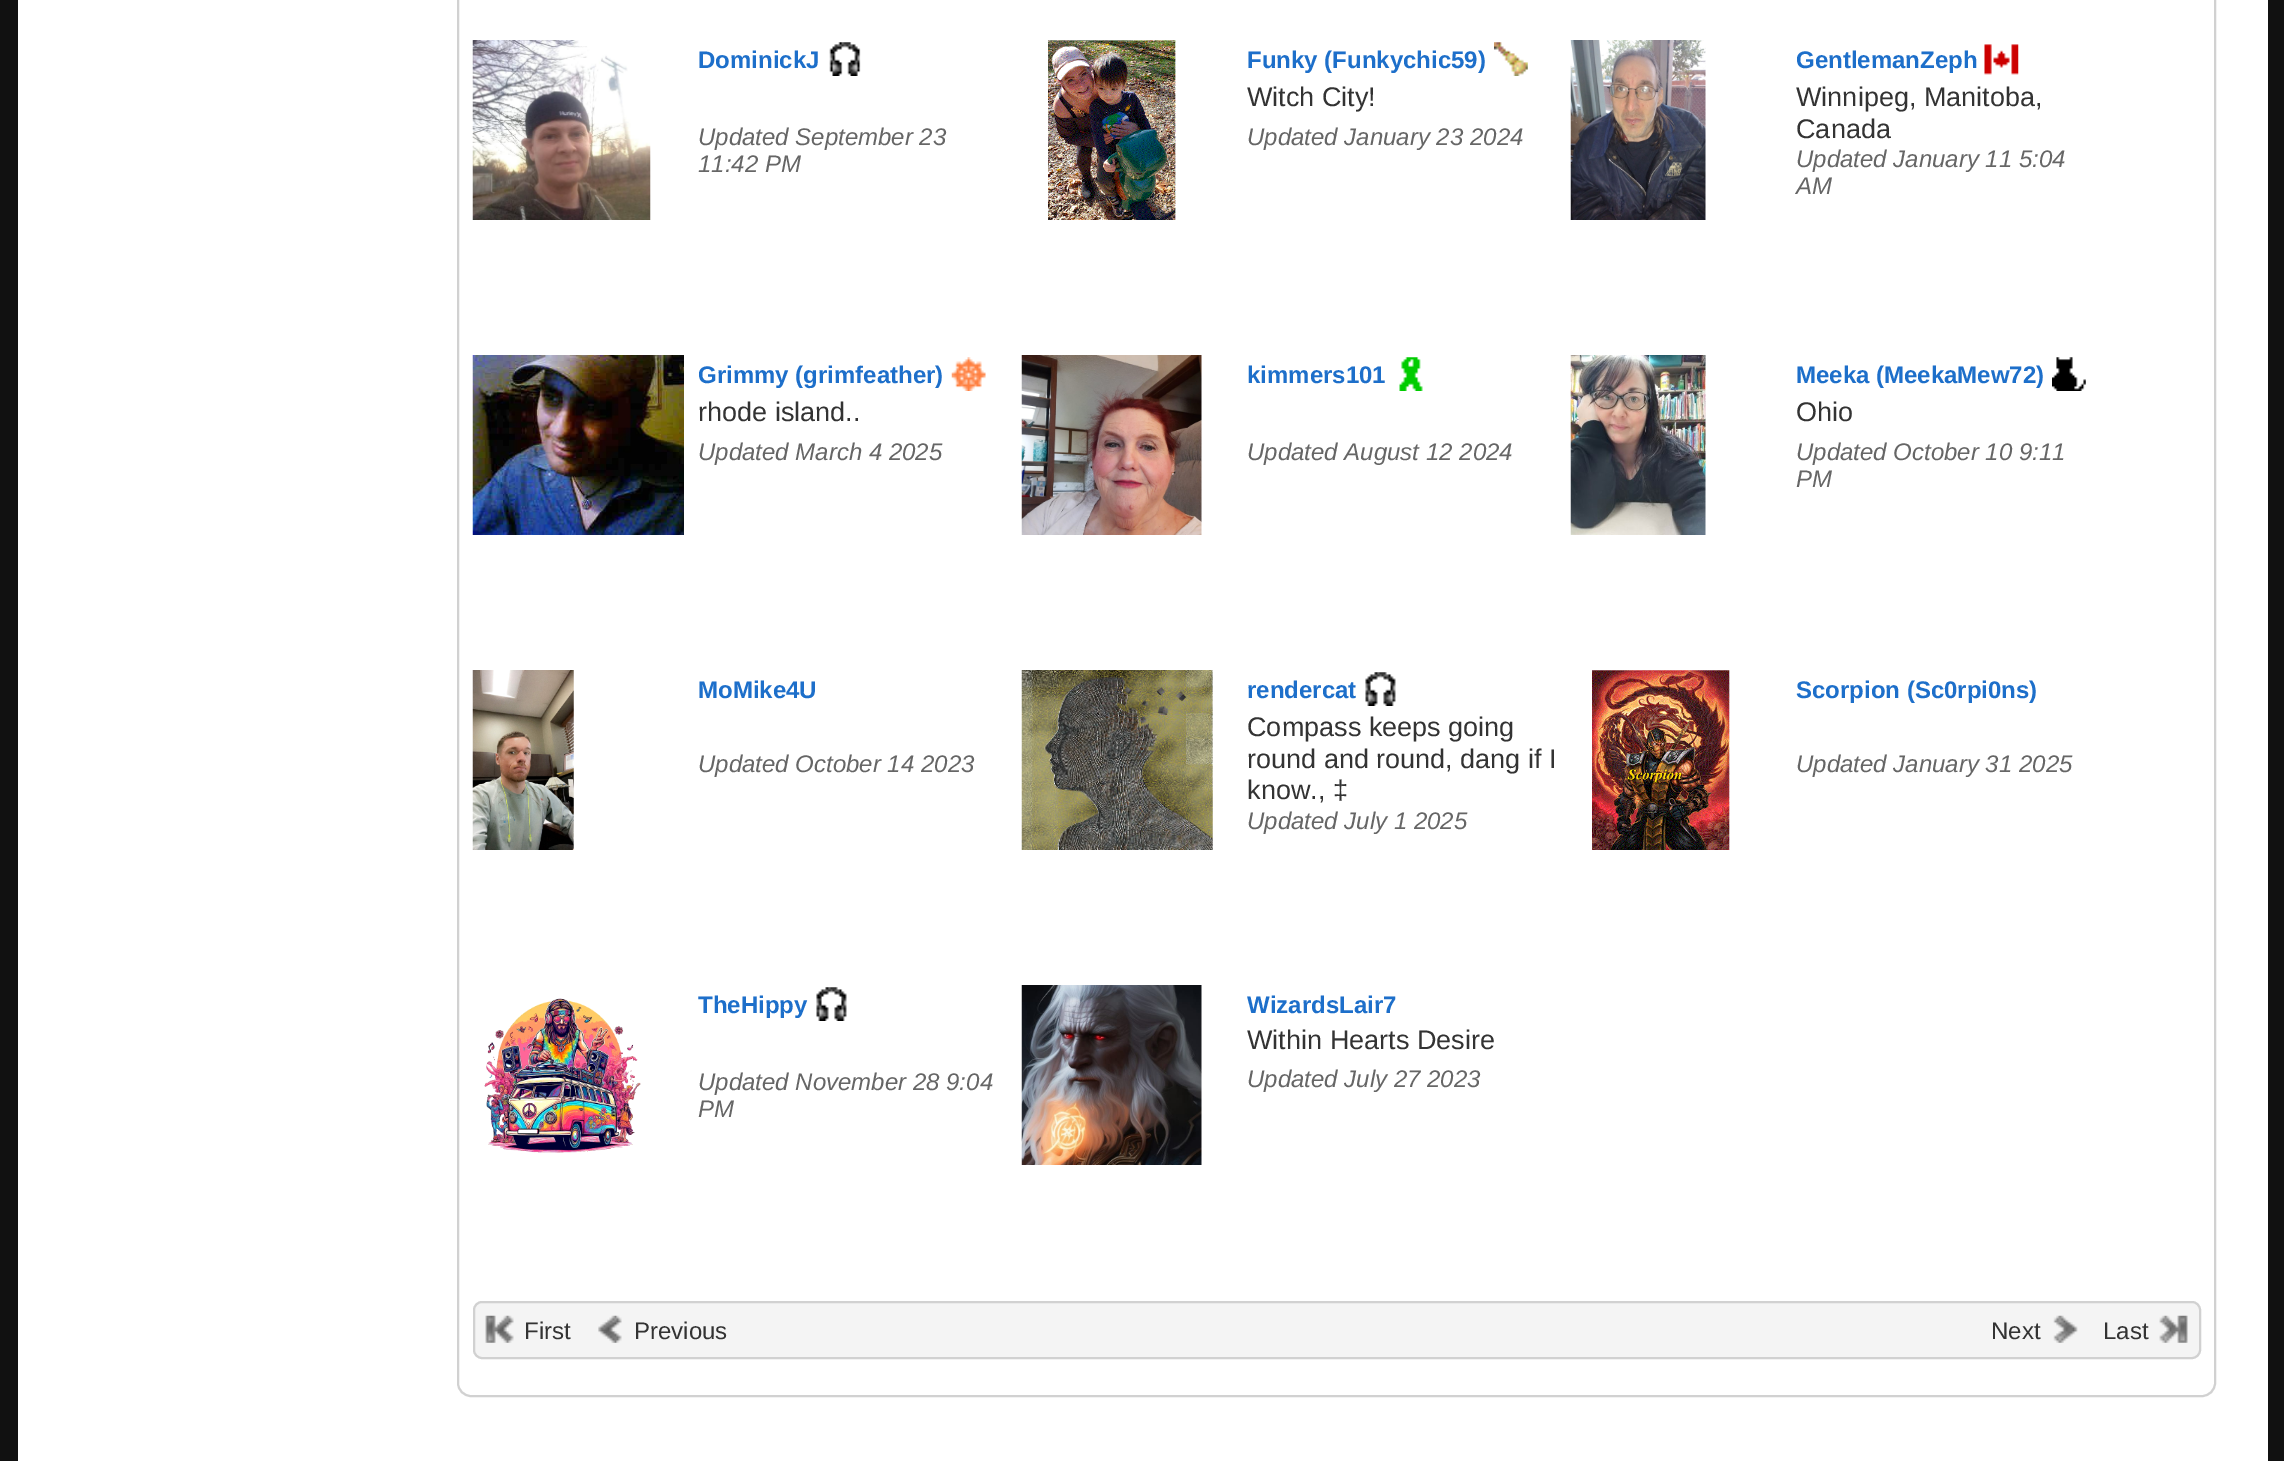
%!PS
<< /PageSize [2284 1461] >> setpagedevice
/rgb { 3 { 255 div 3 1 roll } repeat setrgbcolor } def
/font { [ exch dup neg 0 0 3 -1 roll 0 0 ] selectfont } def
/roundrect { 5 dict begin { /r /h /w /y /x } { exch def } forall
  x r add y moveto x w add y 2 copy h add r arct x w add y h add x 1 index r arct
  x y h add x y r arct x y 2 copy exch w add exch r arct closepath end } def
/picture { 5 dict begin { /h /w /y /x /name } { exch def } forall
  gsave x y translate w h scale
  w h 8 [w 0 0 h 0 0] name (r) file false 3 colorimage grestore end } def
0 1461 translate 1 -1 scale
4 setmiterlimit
17 17 17 rgb
0 0 2284 1461 rectfill
255 255 255 rgb
18 0 2250 1461 rectfill
209 209 209 rgb
2 setlinewidth
458 -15 1757 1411 13 roundrect stroke
(img/1.rgb) 472 40 179 180 picture
(img/2.rgb) 829 42 32 34 picture
(img/3.rgb) 1048 40 128 180 picture
(img/4.rgb) 1494 42 34 34 picture
(img/5.rgb) 1570 40 136 180 picture
(img/6.rgb) 1984 44 35 31 picture
(img/7.rgb) 472 355 212 180 picture
(img/8.rgb) 951 357 35 34 picture
(img/9.rgb) 1021 355 181 180 picture
(img/10.rgb) 1399 357 24 34 picture
(img/11.rgb) 1570 355 136 180 picture
(img/12.rgb) 2052 357 34 34 picture
(img/13.rgb) 472 670 102 180 picture
(img/14.rgb) 1021 670 192 180 picture
(img/15.rgb) 1365 672 31 34 picture
(img/16.rgb) 1592 670 138 180 picture
(img/17.rgb) 484 998 157 155 picture
(img/18.rgb) 816 987 31 34 picture
(img/19.rgb) 1021 985 181 180 picture
244 244 244 rgb
474 1302 1726 56 8 roundrect gsave fill grestore
209 209 209 rgb
stroke
(img/20.rgb) 485 1315 29 28 picture
(img/21.rgb) 598 1315 24 28 picture
(img/22.rgb) 2053 1315 25 28 picture
(img/23.rgb) 2159 1315 29 28 picture
/LiberationSans-Bold 24 font
29 111 202 rgb
698 68 moveto (DominickJ) show
/LiberationSans-Italic 24 font
102 102 102 rgb
698 145 moveto (Updated September 23) show
698 172 moveto (11:42 PM) show
/LiberationSans-Bold 24 font
29 111 202 rgb
1247 68 moveto (Funky \(Funkychic59\)) show
/LiberationSans-Regular 27 font
51 51 51 rgb
1247 106 moveto (Witch City!) show
/LiberationSans-Italic 24 font
102 102 102 rgb
1247 145 moveto (Updated January 23 2024) show
/LiberationSans-Bold 24 font
29 111 202 rgb
1796 68 moveto (GentlemanZeph) show
/LiberationSans-Regular 27 font
51 51 51 rgb
1796 106 moveto (Winnipeg, Manitoba,) show
1796 138 moveto (Canada) show
/LiberationSans-Italic 24 font
102 102 102 rgb
1796 167 moveto (Updated January 11 5:04) show
1796 194 moveto (AM) show
/LiberationSans-Bold 24 font
29 111 202 rgb
698 383 moveto (Grimmy \(grimfeather\)) show
/LiberationSans-Regular 27 font
51 51 51 rgb
698 421 moveto (rhode island..) show
/LiberationSans-Italic 24 font
102 102 102 rgb
698 460 moveto (Updated March 4 2025) show
/LiberationSans-Bold 24 font
29 111 202 rgb
1247 383 moveto (kimmers101) show
/LiberationSans-Italic 24 font
102 102 102 rgb
1247 460 moveto (Updated August 12 2024) show
/LiberationSans-Bold 24 font
29 111 202 rgb
1796 383 moveto (Meeka \(MeekaMew72\)) show
/LiberationSans-Regular 27 font
51 51 51 rgb
1796 421 moveto (Ohio) show
/LiberationSans-Italic 24 font
102 102 102 rgb
1796 460 moveto (Updated October 10 9:11) show
1796 487 moveto (PM) show
/LiberationSans-Bold 24 font
29 111 202 rgb
698 698 moveto (MoMike4U) show
/LiberationSans-Italic 24 font
102 102 102 rgb
698 772 moveto (Updated October 14 2023) show
/LiberationSans-Bold 24 font
29 111 202 rgb
1247 698 moveto (rendercat) show
/LiberationSans-Regular 27 font
51 51 51 rgb
[
  [(Compass keeps going) 1247 736]
  [(round and round, dang if I) 1247 768]
  [(know., ‡) 1247 799]
] { aload pop moveto show } forall
/LiberationSans-Italic 24 font
102 102 102 rgb
1247 829 moveto (Updated July 1 2025) show
/LiberationSans-Bold 24 font
29 111 202 rgb
1796 698 moveto (Scorpion \(Sc0rpi0ns\)) show
/LiberationSans-Italic 24 font
102 102 102 rgb
1796 772 moveto (Updated January 31 2025) show
/LiberationSans-Bold 24 font
29 111 202 rgb
698 1013 moveto (TheHippy) show
/LiberationSans-Italic 24 font
102 102 102 rgb
698 1090 moveto (Updated November 28 9:04) show
698 1117 moveto (PM) show
/LiberationSans-Bold 24 font
29 111 202 rgb
1247 1013 moveto (WizardsLair7) show
/LiberationSans-Regular 27 font
51 51 51 rgb
1247 1049 moveto (Within Hearts Desire) show
/LiberationSans-Italic 24 font
102 102 102 rgb
1247 1087 moveto (Updated July 27 2023) show
/LiberationSans-Regular 24 font
51 51 51 rgb
[
  [(First) 524 1339]
  [(Previous) 634 1339]
  [(Next) 1991 1339]
  [(Last) 2103 1339]
] { aload pop moveto show } forall
showpage
